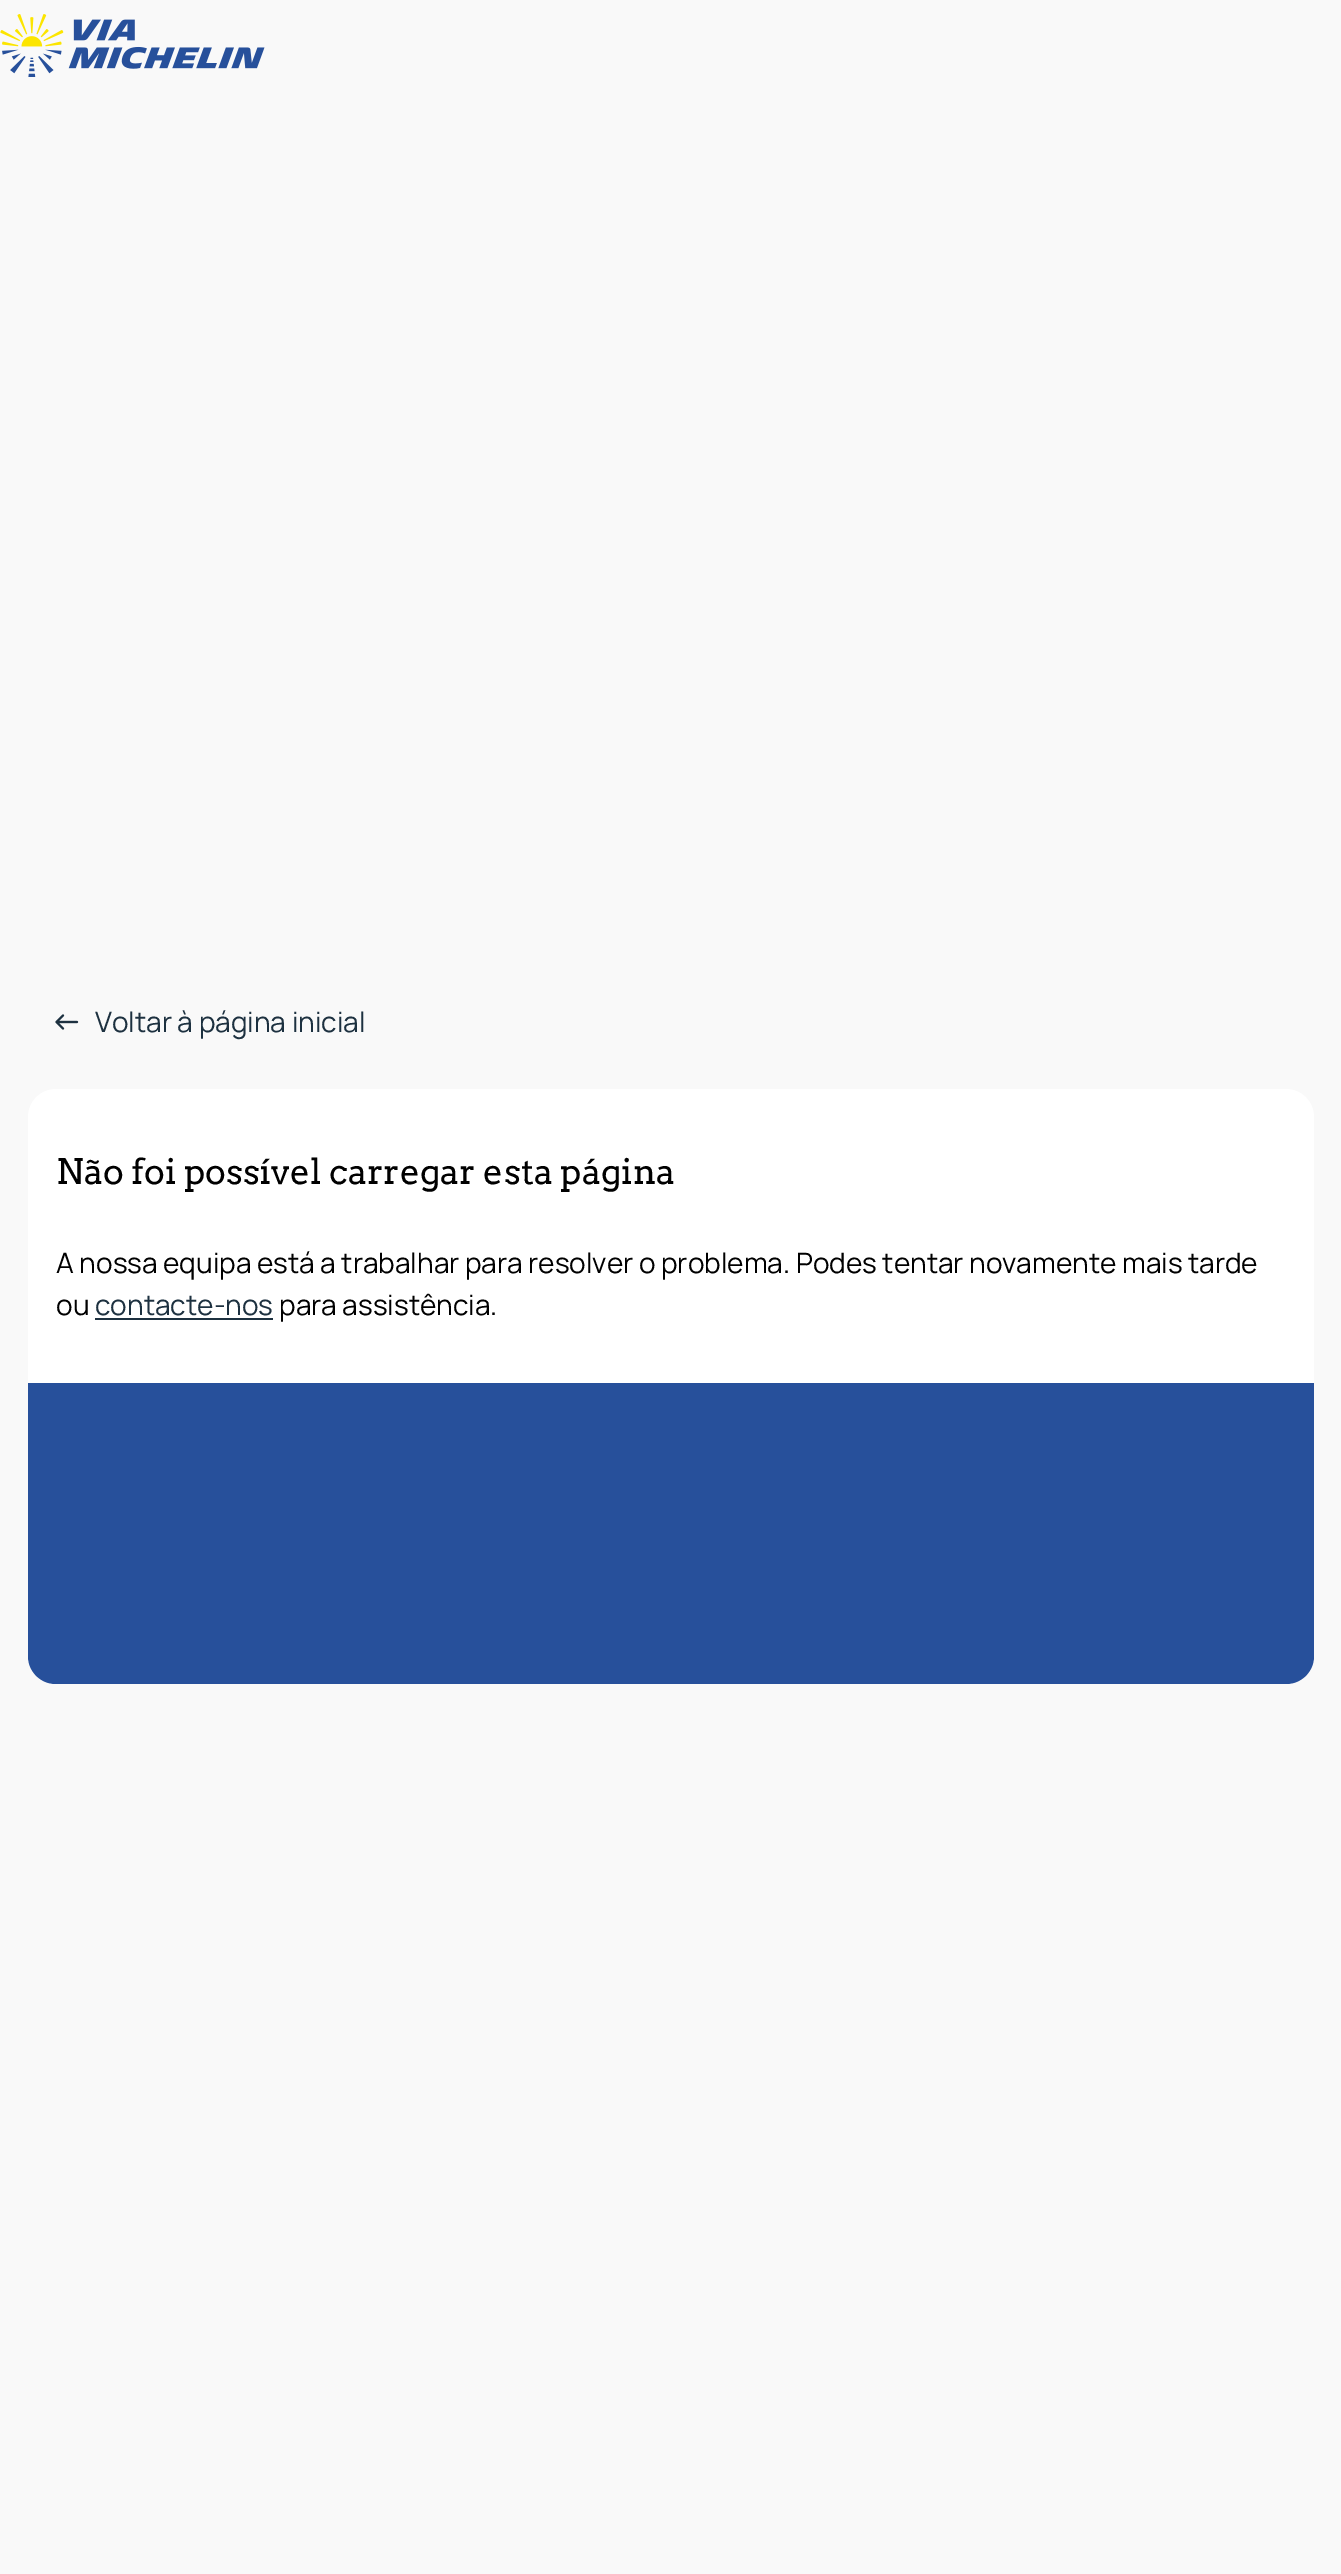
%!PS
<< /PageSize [1341 2574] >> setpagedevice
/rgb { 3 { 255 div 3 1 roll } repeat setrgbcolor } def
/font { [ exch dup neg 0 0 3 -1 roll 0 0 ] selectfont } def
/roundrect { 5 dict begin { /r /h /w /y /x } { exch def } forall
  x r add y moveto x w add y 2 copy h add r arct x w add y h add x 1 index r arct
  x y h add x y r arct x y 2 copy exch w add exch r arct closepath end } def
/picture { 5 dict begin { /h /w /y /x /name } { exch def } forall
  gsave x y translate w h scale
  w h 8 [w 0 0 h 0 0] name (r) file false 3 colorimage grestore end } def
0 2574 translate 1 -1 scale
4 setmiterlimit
249 249 249 rgb
0 0 1341 2574 rectfill
(img/1.rgb) 0 14 265 63 picture
(img/2.rgb) 55 1014 24 16 picture
255 255 255 rgb
28 1089 1286 595 28 roundrect fill
29 49 64 rgb
95 1318 178 2 rectfill
39 80 155 rgb
28 1383 moveto 1314 1383 lineto 1314 1656 lineto 1314 1671.5 1301.5 1684 1286 1684 curveto 56 1684 lineto 40.5 1684 28 1671.5 28 1656 curveto closepath fill
/Manrope-ExtraLight 28 font
29 49 64 rgb
95 1032 moveto (Voltar à página inicial) show
/Arvo-Regular 35 font
0 0 0 rgb
56 1184 moveto (Não foi possível carregar esta página) show
/Manrope-ExtraLight 28 font
56 1273 moveto (A nossa equipa está a trabalhar para resolver o problema. Podes tentar novamente mais tarde) show
56 1315 moveto (ou) show
29 49 64 rgb
95 1315 moveto (contacte-nos) show
0 0 0 rgb
279 1315 moveto (para assistência.) show
showpage
